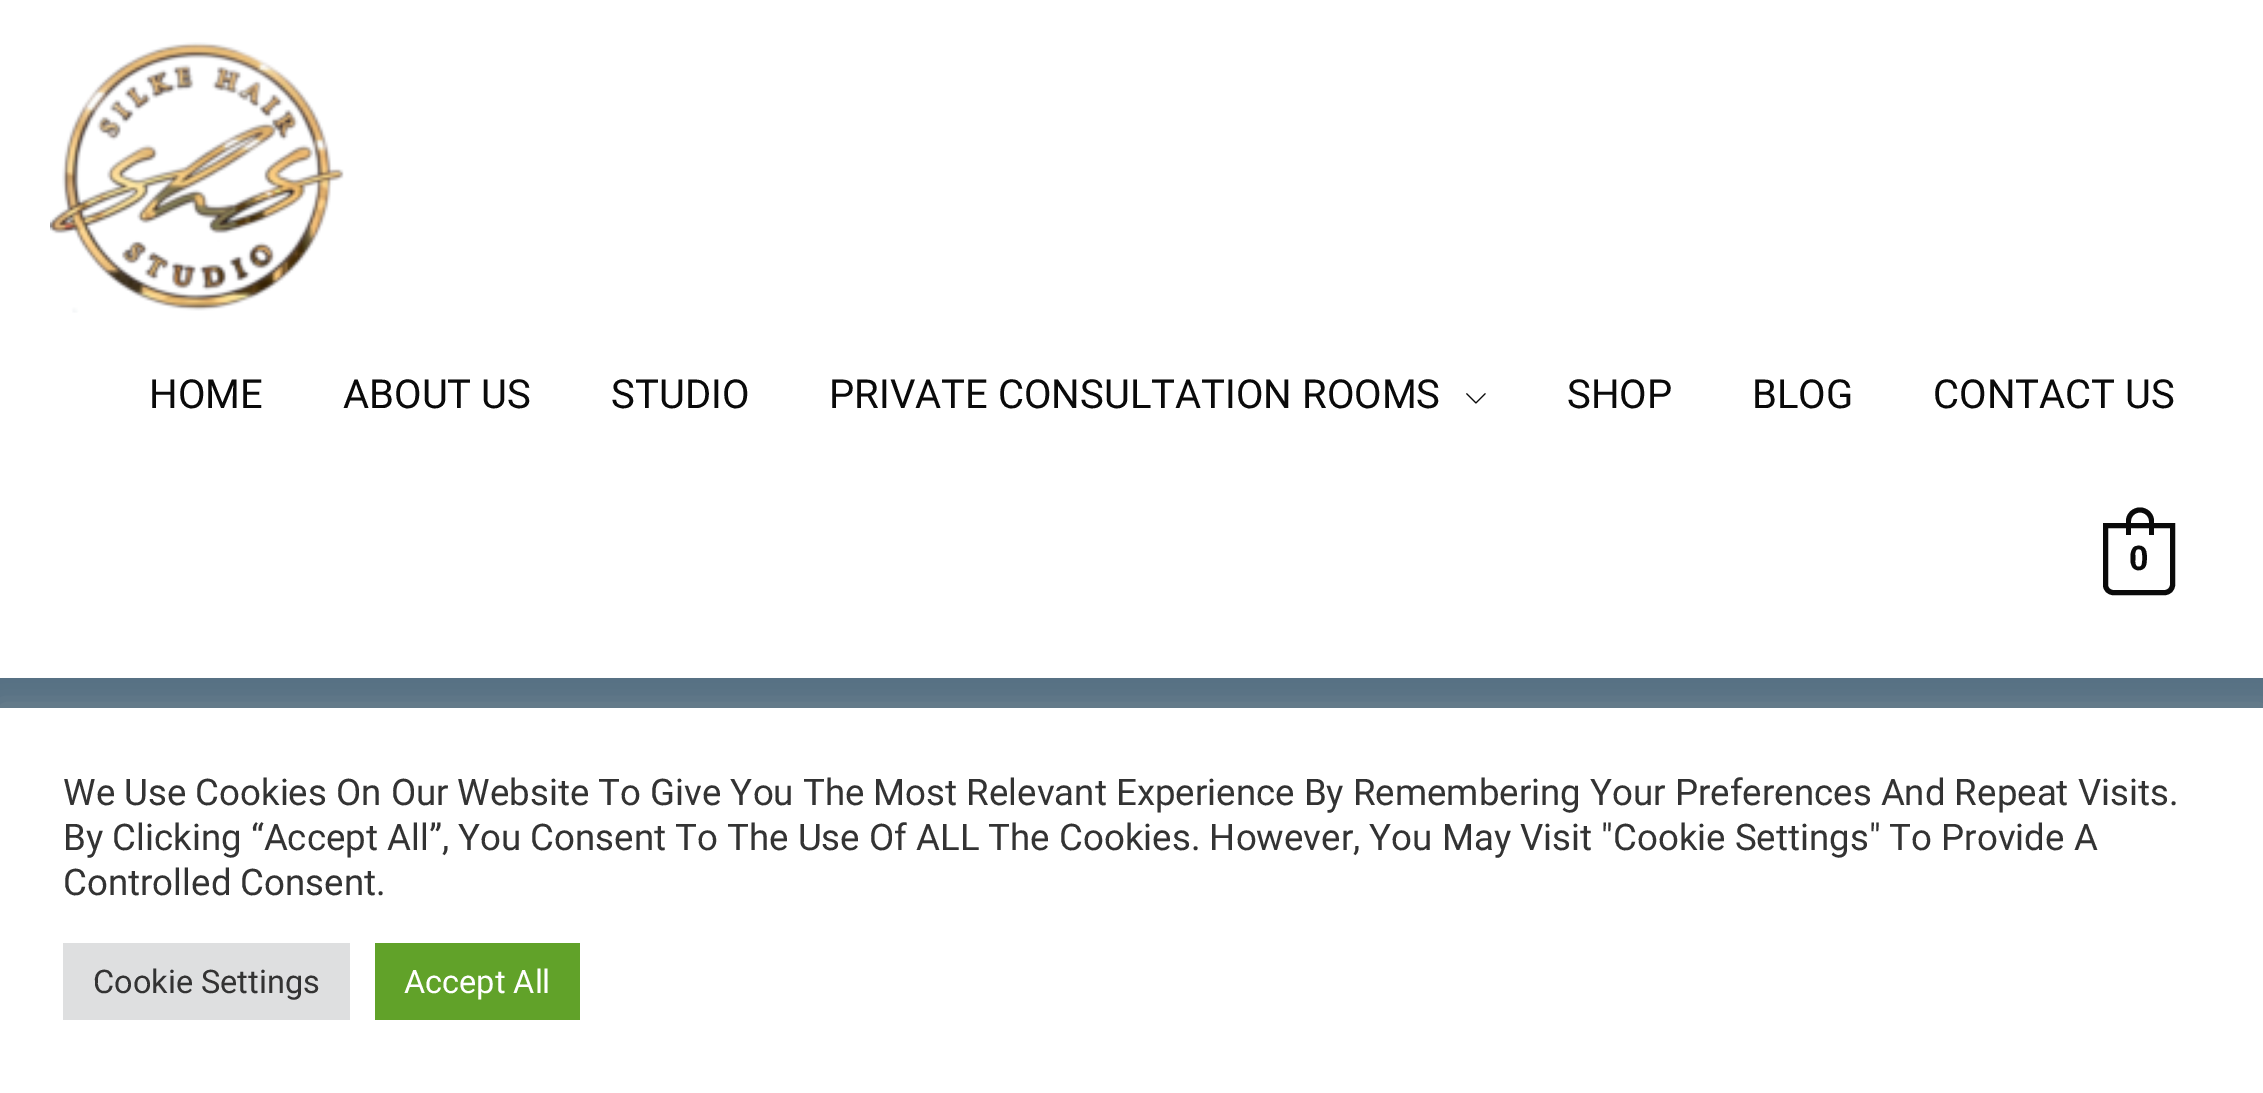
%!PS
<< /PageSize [2263 1093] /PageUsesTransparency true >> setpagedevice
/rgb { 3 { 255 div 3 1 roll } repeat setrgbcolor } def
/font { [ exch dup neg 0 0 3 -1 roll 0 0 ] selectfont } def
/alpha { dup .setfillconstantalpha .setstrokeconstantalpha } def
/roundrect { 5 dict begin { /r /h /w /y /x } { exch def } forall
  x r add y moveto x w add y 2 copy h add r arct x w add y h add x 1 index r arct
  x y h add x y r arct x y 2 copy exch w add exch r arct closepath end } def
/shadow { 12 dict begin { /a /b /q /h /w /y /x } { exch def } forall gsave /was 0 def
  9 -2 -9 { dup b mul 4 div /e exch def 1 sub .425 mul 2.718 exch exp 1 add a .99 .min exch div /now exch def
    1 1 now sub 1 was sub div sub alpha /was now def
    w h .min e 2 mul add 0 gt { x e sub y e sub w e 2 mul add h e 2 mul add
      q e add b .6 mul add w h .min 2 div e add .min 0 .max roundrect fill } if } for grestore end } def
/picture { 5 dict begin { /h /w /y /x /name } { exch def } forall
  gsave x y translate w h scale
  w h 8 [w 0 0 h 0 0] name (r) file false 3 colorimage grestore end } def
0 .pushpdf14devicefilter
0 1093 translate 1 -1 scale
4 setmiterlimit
86 113 132 rgb
0 0 2263 1093 rectfill
255 255 255 rgb
0 0 2263 678 rectfill
(img/1.rgb) 50 42 294 271 picture
(img/2.rgb) 1466 393 20 11 picture
10 10 10 rgb
5 setlinewidth
2105.5 525.5 moveto 2172.5 525.5 lineto 2172.5 585 lineto 2172.5 589 2169 592.5 2165 592.5 curveto 2113 592.5 lineto 2109 592.5 2105.5 589 2105.5 585 curveto closepath stroke
2140 507.5 moveto 2147.5 507.5 2154 513.5 2154 521 curveto 2154 535 lineto 2126 535 lineto 2126 521 lineto 2126 513.5 2132.5 507.5 2140 507.5 curveto closepath 2140 512.5 moveto 2145 512.5 2149 516.5 2149 521 curveto 2149 535 lineto 2131 535 lineto 2131 521 lineto 2131 516.5 2135 512.5 2140 512.5 curveto closepath eofill
172 171 171 rgb
0 705 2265 388 0 12.5 0.3 shadow
[
  [0 708 2263 385 255 255 255]
  [63 943 287 77 222 223 224]
  [375 943 205 77 97 162 41]
] { aload pop rgb rectfill } forall
/Roboto-Regular 40 font
10 10 10 rgb
[
  [(HOME) 149 408]
  [(ABOUT US) 343 408]
  [(STUDIO) 611 408]
  [(PRIVATE CONSULTATION ROOMS) 829 408]
  [(SHOP) 1567 408]
  [(BLOG) 1752 408]
  [(CONTACT US) 1933 408]
] { aload pop moveto show } forall
/Roboto-Bold 34 font
2129 570 moveto (0) show
/Roboto-Regular 36.67 font
51 51 51 rgb
[
  [(We Use Cookies On Our Website To Give You The Most Relevant Experience By Remembering Your Preferences And Repeat Visits.) 63 805]
  [(By Clicking “Accept All”, You Consent To The Use Of ALL The Cookies. However, You May Visit "Cookie Settings" To Provide A) 63 850]
  [(Controlled Consent.) 63 895]
] { aload pop moveto show } forall
/Roboto-Regular 32.5 font
93 993 moveto (Cookie Settings) show
255 255 255 rgb
404 993 moveto (Accept All) show
.poppdf14devicefilter showpage
